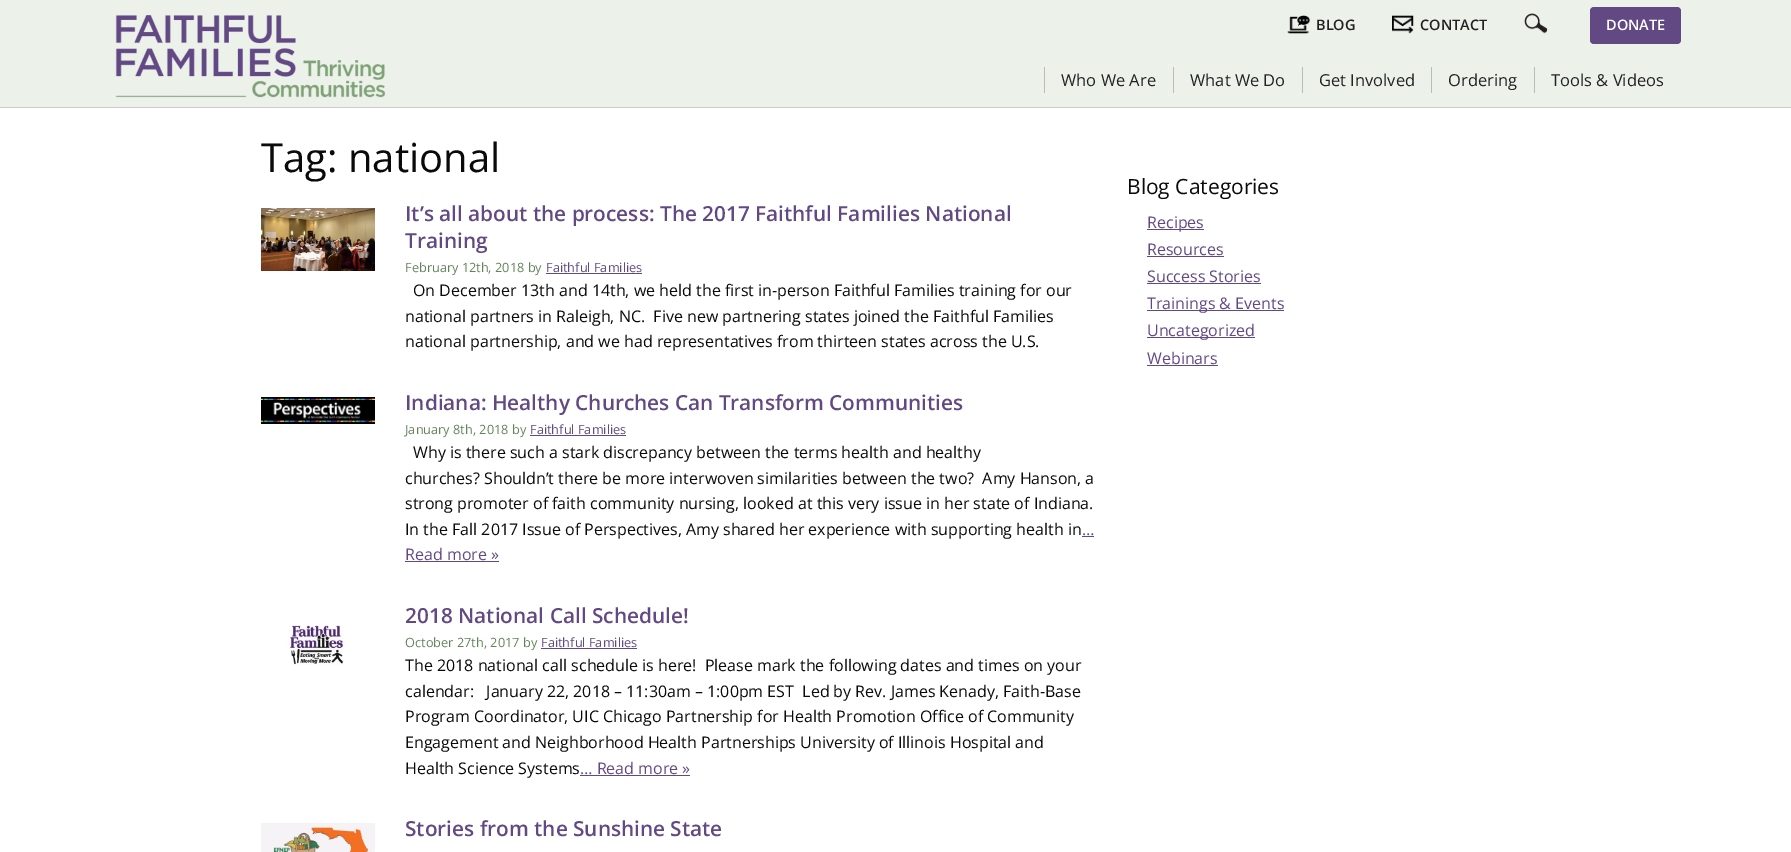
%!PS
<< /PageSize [1791 852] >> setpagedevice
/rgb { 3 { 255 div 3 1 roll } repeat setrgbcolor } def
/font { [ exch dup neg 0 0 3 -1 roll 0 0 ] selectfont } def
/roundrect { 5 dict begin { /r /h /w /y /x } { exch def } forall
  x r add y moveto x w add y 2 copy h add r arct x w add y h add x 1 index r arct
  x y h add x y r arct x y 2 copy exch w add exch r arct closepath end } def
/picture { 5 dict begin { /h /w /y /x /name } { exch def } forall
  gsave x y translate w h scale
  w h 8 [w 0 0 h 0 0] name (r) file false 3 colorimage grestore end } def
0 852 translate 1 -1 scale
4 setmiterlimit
255 255 255 rgb
0 0 1791 852 rectfill
236 241 234 rgb
0 0 1791 107 rectfill
204 204 204 rgb
0 107 1791 1 rectfill
(img/1.rgb) 115 15 270 83 picture
(img/2.rgb) 1287 15 23 19 picture
(img/3.rgb) 1392 15 22 19 picture
(img/4.rgb) 1524 13 24 21 picture
98 73 132 rgb
1590 7 91 37 4 roundrect fill
[
  [1044 67 1 26 187 187 187]
  [1173 67 1 26 187 187 187]
  [1302 67 1 26 187 187 187]
  [1431 67 1 26 187 187 187]
  [1534 67 1 26 187 187 187]
] { aload pop rgb rectfill } forall
(img/5.rgb) 261 208 114 63 picture
98 73 132 rgb
546 273 96 1 rectfill
(img/6.rgb) 261 397 114 27 picture
[
  [530 435 96 1 98 73 132]
  [1082 536 12 1 98 73 132]
  [405 561 94 1 98 73 132]
] { aload pop rgb rectfill } forall
(img/7.rgb) 287 625 58 40 picture
541 648 96 1 rectfill
580 775 110 1 rectfill
(img/8.rgb) 261 823 114 29 picture
[
  [1147 229 57 1 98 73 132]
  [1147 256 77 1 98 73 132]
  [1147 283 114 1 98 73 132]
  [1147 310 137 1 98 73 132]
  [1147 337 108 1 98 73 132]
  [1147 365 71 1 98 73 132]
] { aload pop rgb rectfill } forall
/OpenSans-SemiBold 14.5 font
34 34 34 rgb
1316 30 moveto (BLOG) show
1420 30 moveto (CONTACT) show
255 255 255 rgb
1606 30 moveto (DONATE) show
/OpenSans-Regular 16.5 font
34 34 34 rgb
[
  [(Who We Are) 1061 86]
  [(What We Do) 1190 86]
  [(Get Involved) 1319 86]
  [(Ordering) 1448 86]
  [(Tools & Videos) 1551 86]
] { aload pop moveto show } forall
/OpenSans-Regular 40 font
10 10 10 rgb
261 172 moveto (Tag: national) show
/OpenSans-SemiBold 20.8 font
98 73 132 rgb
405 221 moveto (It’s all about the process: The 2017 Faithful Families National) show
405 248 moveto (Training) show
/OpenSans-Regular 12.75 font
99 132 91 rgb
405 272 moveto (February 12th, 2018 by) show
98 73 132 rgb
546 272 moveto (Faithful Families) show
/OpenSans-Regular 16 font
10 10 10 rgb
[
  [(On December 13th and 14th, we held the first in-person Faithful Families training for our) 413 296]
  [(national partners in Raleigh, NC.  Five new partnering states joined the Faithful Families) 405 322]
  [(national partnership, and we had representatives from thirteen states across the U.S.) 405 347]
] { aload pop moveto show } forall
/OpenSans-SemiBold 20.8 font
98 73 132 rgb
405 410 moveto (Indiana: Healthy Churches Can Transform Communities) show
/OpenSans-Regular 12.75 font
99 132 91 rgb
405 434 moveto (January 8th, 2018 by) show
98 73 132 rgb
530 434 moveto (Faithful Families) show
/OpenSans-Regular 16 font
10 10 10 rgb
[
  [(Why is there such a stark discrepancy between the terms health and healthy) 413 458]
  [(churches? Shouldn’t there be more interwoven similarities between the two?  Amy Hanson, a) 405 484]
  [(strong promoter of faith community nursing, looked at this very issue in her state of Indiana.) 405 509]
  [(In the Fall 2017 Issue of Perspectives, Amy shared her experience with supporting health in) 405 535]
] { aload pop moveto show } forall
98 73 132 rgb
1082 535 moveto (…) show
405 560 moveto (Read more ») show
/OpenSans-SemiBold 20.8 font
405 623 moveto (2018 National Call Schedule!) show
/OpenSans-Regular 12.75 font
99 132 91 rgb
405 647 moveto (October 27th, 2017 by) show
98 73 132 rgb
541 647 moveto (Faithful Families) show
/OpenSans-Regular 16 font
10 10 10 rgb
[
  [(The 2018 national call schedule is here!  Please mark the following dates and times on your) 405 671]
  [(calendar:   January 22, 2018 – 11:30am – 1:00pm EST  Led by Rev. James Kenady, Faith-Base) 405 697]
  [(Program Coordinator, UIC Chicago Partnership for Health Promotion Office of Community) 405 722]
  [(Engagement and Neighborhood Health Partnerships University of Illinois Hospital and) 405 748]
  [(Health Science Systems) 405 774]
] { aload pop moveto show } forall
98 73 132 rgb
580 774 moveto (… Read more ») show
/OpenSans-SemiBold 20.8 font
405 836 moveto (Stories from the Sunshine State) show
/OpenSans-Regular 21 font
10 10 10 rgb
1127 194 moveto (Blog Categories) show
/OpenSans-Regular 16 font
98 73 132 rgb
[
  [(Recipes) 1147 228]
  [(Resources) 1147 255]
  [(Success Stories) 1147 282]
  [(Trainings & Events) 1147 309]
  [(Uncategorized) 1147 336]
  [(Webinars) 1147 364]
] { aload pop moveto show } forall
showpage
